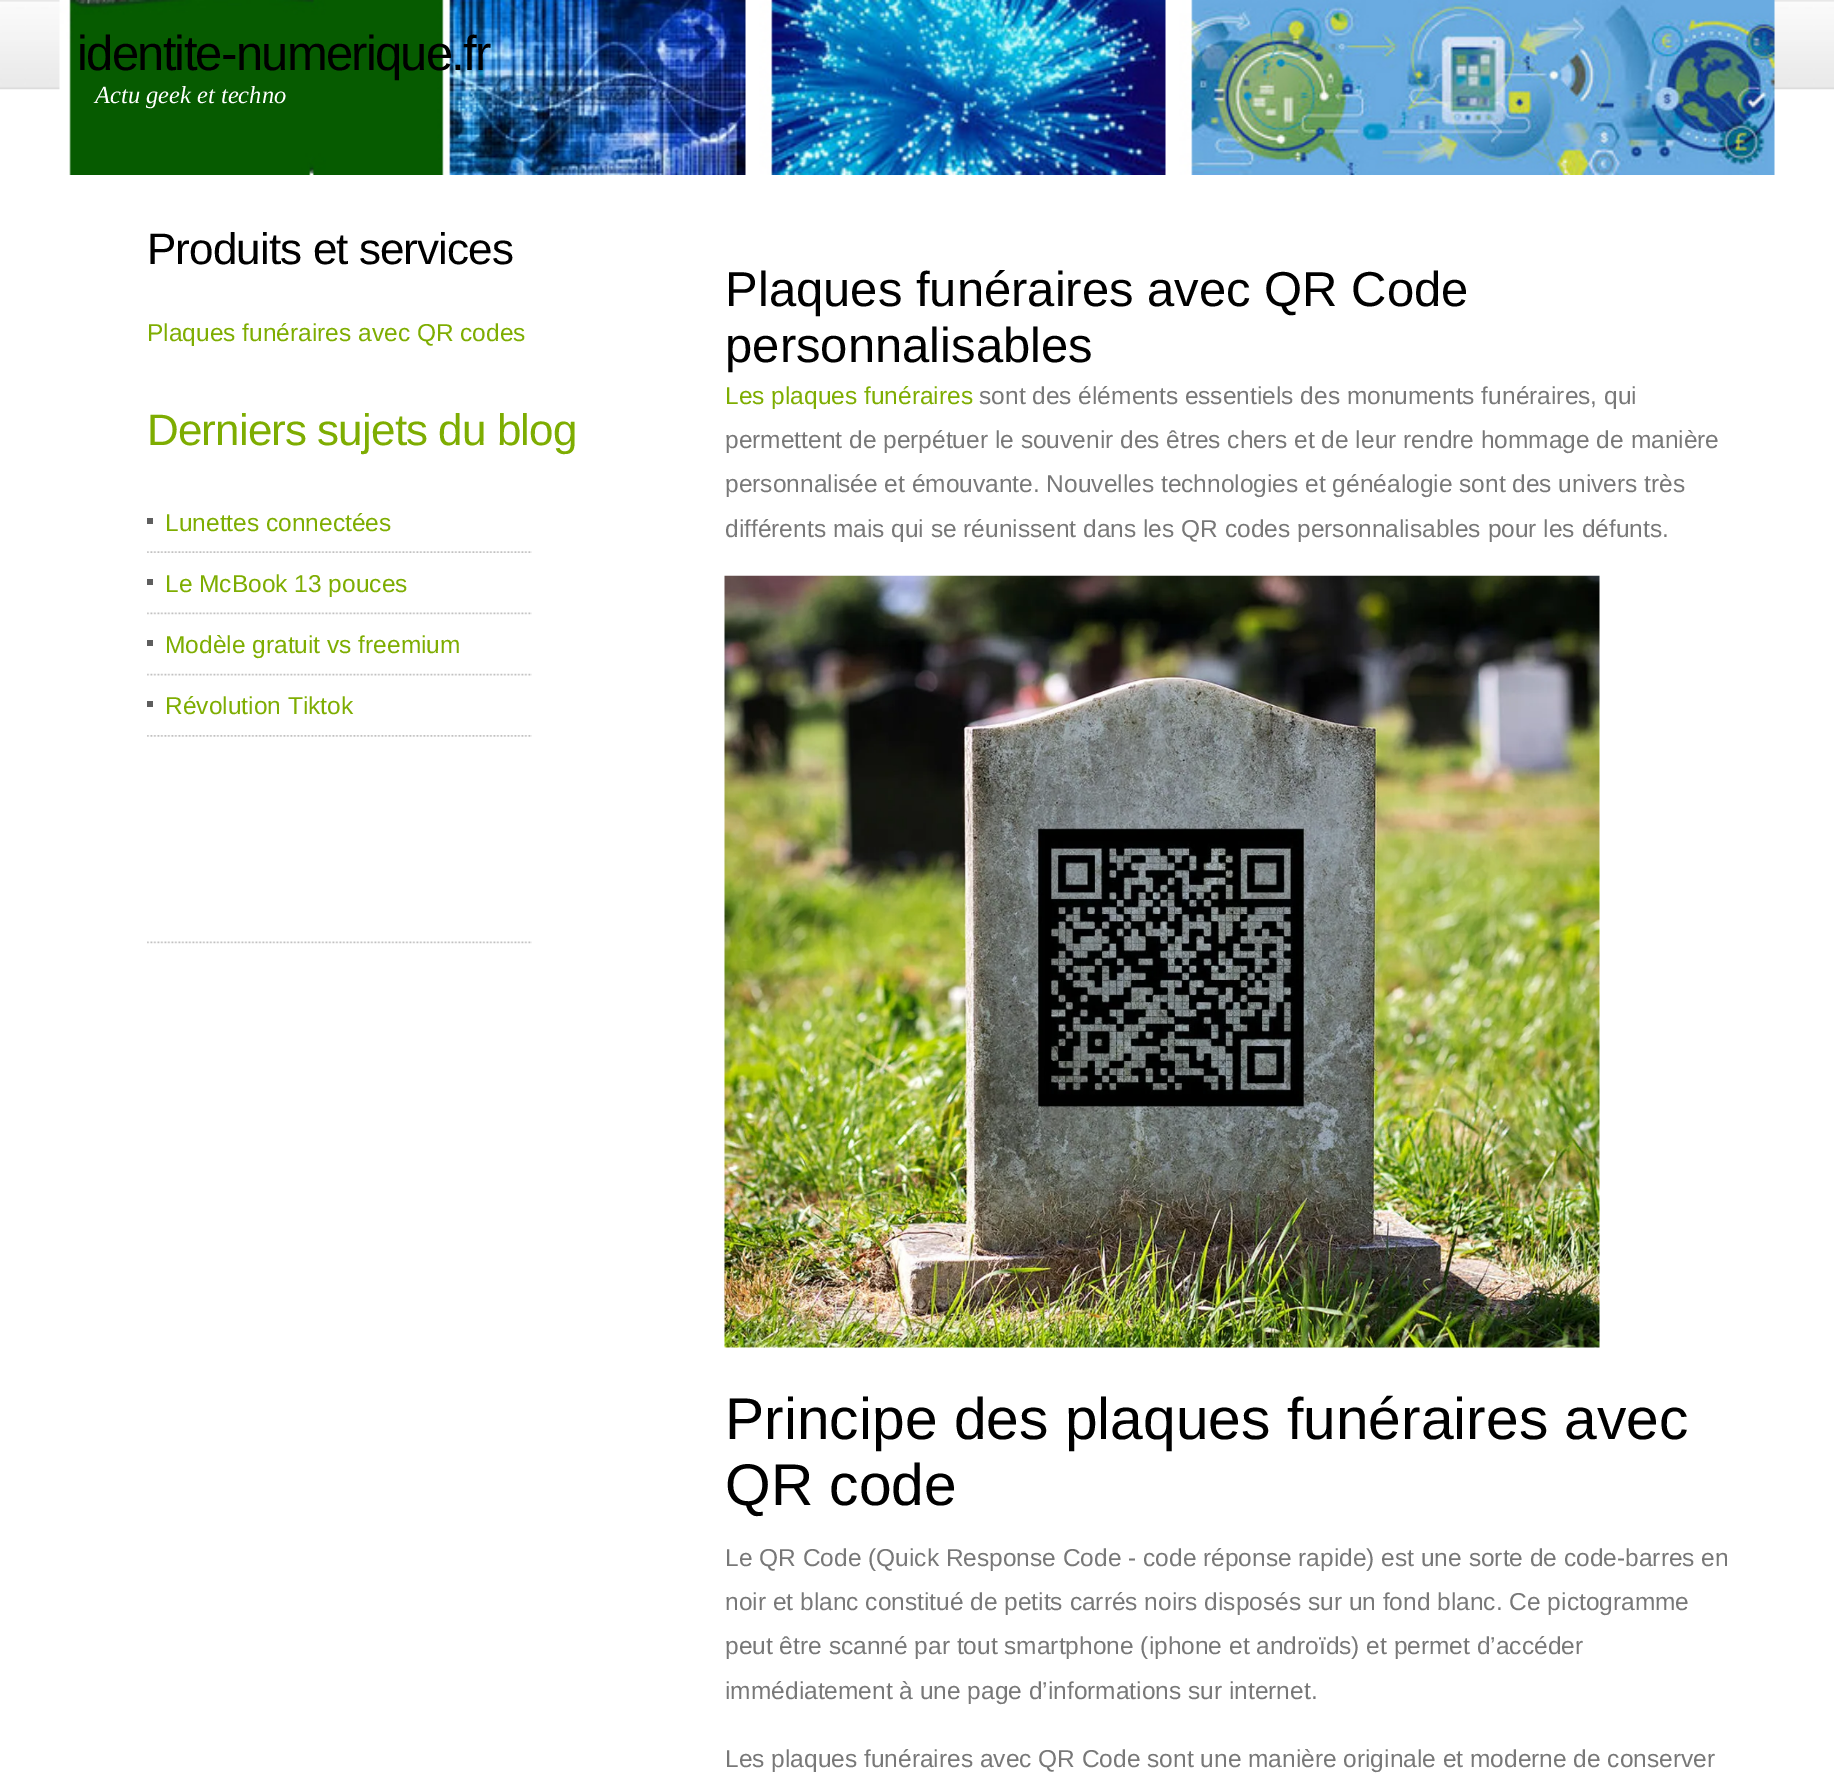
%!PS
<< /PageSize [1834 1777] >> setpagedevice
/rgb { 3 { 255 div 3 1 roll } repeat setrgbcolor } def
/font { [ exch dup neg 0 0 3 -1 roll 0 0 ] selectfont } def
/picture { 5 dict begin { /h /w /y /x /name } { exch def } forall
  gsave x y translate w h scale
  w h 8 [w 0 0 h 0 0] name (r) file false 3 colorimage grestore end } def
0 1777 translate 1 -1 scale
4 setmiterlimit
255 255 255 rgb
0 0 1834 1777 rectfill
(img/1.rgb) 0 0 1834 90 picture
(img/2.rgb) 59 0 1716 175 picture
(img/3.rgb) 147 551 385 2 picture
94 94 94 rgb
147 518 6 6 rectfill
(img/4.rgb) 147 612 385 3 picture
147 579 6 6 rectfill
(img/5.rgb) 147 673 385 3 picture
147 640 6 6 rectfill
(img/6.rgb) 147 735 385 2 picture
147 701 6 6 rectfill
(img/4.rgb) 147 941 385 3 picture
(img/7.rgb) 724 575 876 773 picture
/LiberationSans-Regular 49 font
0 0 0 rgb
77 70 moveto -1.75 0 (identite-numerique.fr) ashow
/LiberationSerif-Italic 24.5 font
255 255 255 rgb
95 103 moveto (Actu geek et techno) show
/LiberationSans-Regular 44 font
0 0 0 rgb
147 264 moveto -0.9 0 (Produits et services) ashow
/LiberationSans-Regular 24.5 font
126 173 1 rgb
147 341 moveto (Plaques funéraires avec QR codes) show
/LiberationSans-Regular 44 font
147 445 moveto -0.9 0 (Derniers sujets du blog) ashow
/LiberationSans-Regular 24.5 font
[
  [(Lunettes connectées) 165 531]
  [(Le McBook 13 pouces) 165 592]
  [(Modèle gratuit vs freemium) 165 653]
  [(Révolution Tiktok) 165 714]
] { aload pop moveto show } forall
/LiberationSans-Regular 49 font
0 0 0 rgb
725 306 moveto (Plaques funéraires avec QR Code) show
725 362 moveto (personnalisables) show
/LiberationSans-Regular 24.5 font
126 173 1 rgb
725 404 moveto (Les plaques funéraires) show
120 120 120 rgb
[
  [(sont des éléments essentiels des monuments funéraires, qui) 979 404]
  [(permettent de perpétuer le souvenir des êtres chers et de leur rendre hommage de manière) 725 448]
  [(personnalisée et émouvante. Nouvelles technologies et généalogie sont des univers très) 725 492]
  [(différents mais qui se réunissent dans les QR codes personnalisables pour les défunts.) 725 537]
] { aload pop moveto show } forall
/LiberationSans-Regular 58.75 font
0 0 0 rgb
725 1439 moveto (Principe des plaques funéraires avec) show
725 1505 moveto (QR code) show
/LiberationSans-Regular 24.5 font
120 120 120 rgb
[
  [(Le QR Code \(Quick Response Code - code réponse rapide\) est une sorte de code-barres en) 725 1566]
  [(noir et blanc constitué de petits carrés noirs disposés sur un fond blanc. Ce pictogramme) 725 1610]
  [(peut être scanné par tout smartphone \(iphone et androïds\) et permet d’accéder) 725 1654]
  [(immédiatement à une page d’informations sur internet.) 725 1699]
  [(Les plaques funéraires avec QR Code sont une manière originale et moderne de conserver) 725 1767]
] { aload pop moveto show } forall
showpage
